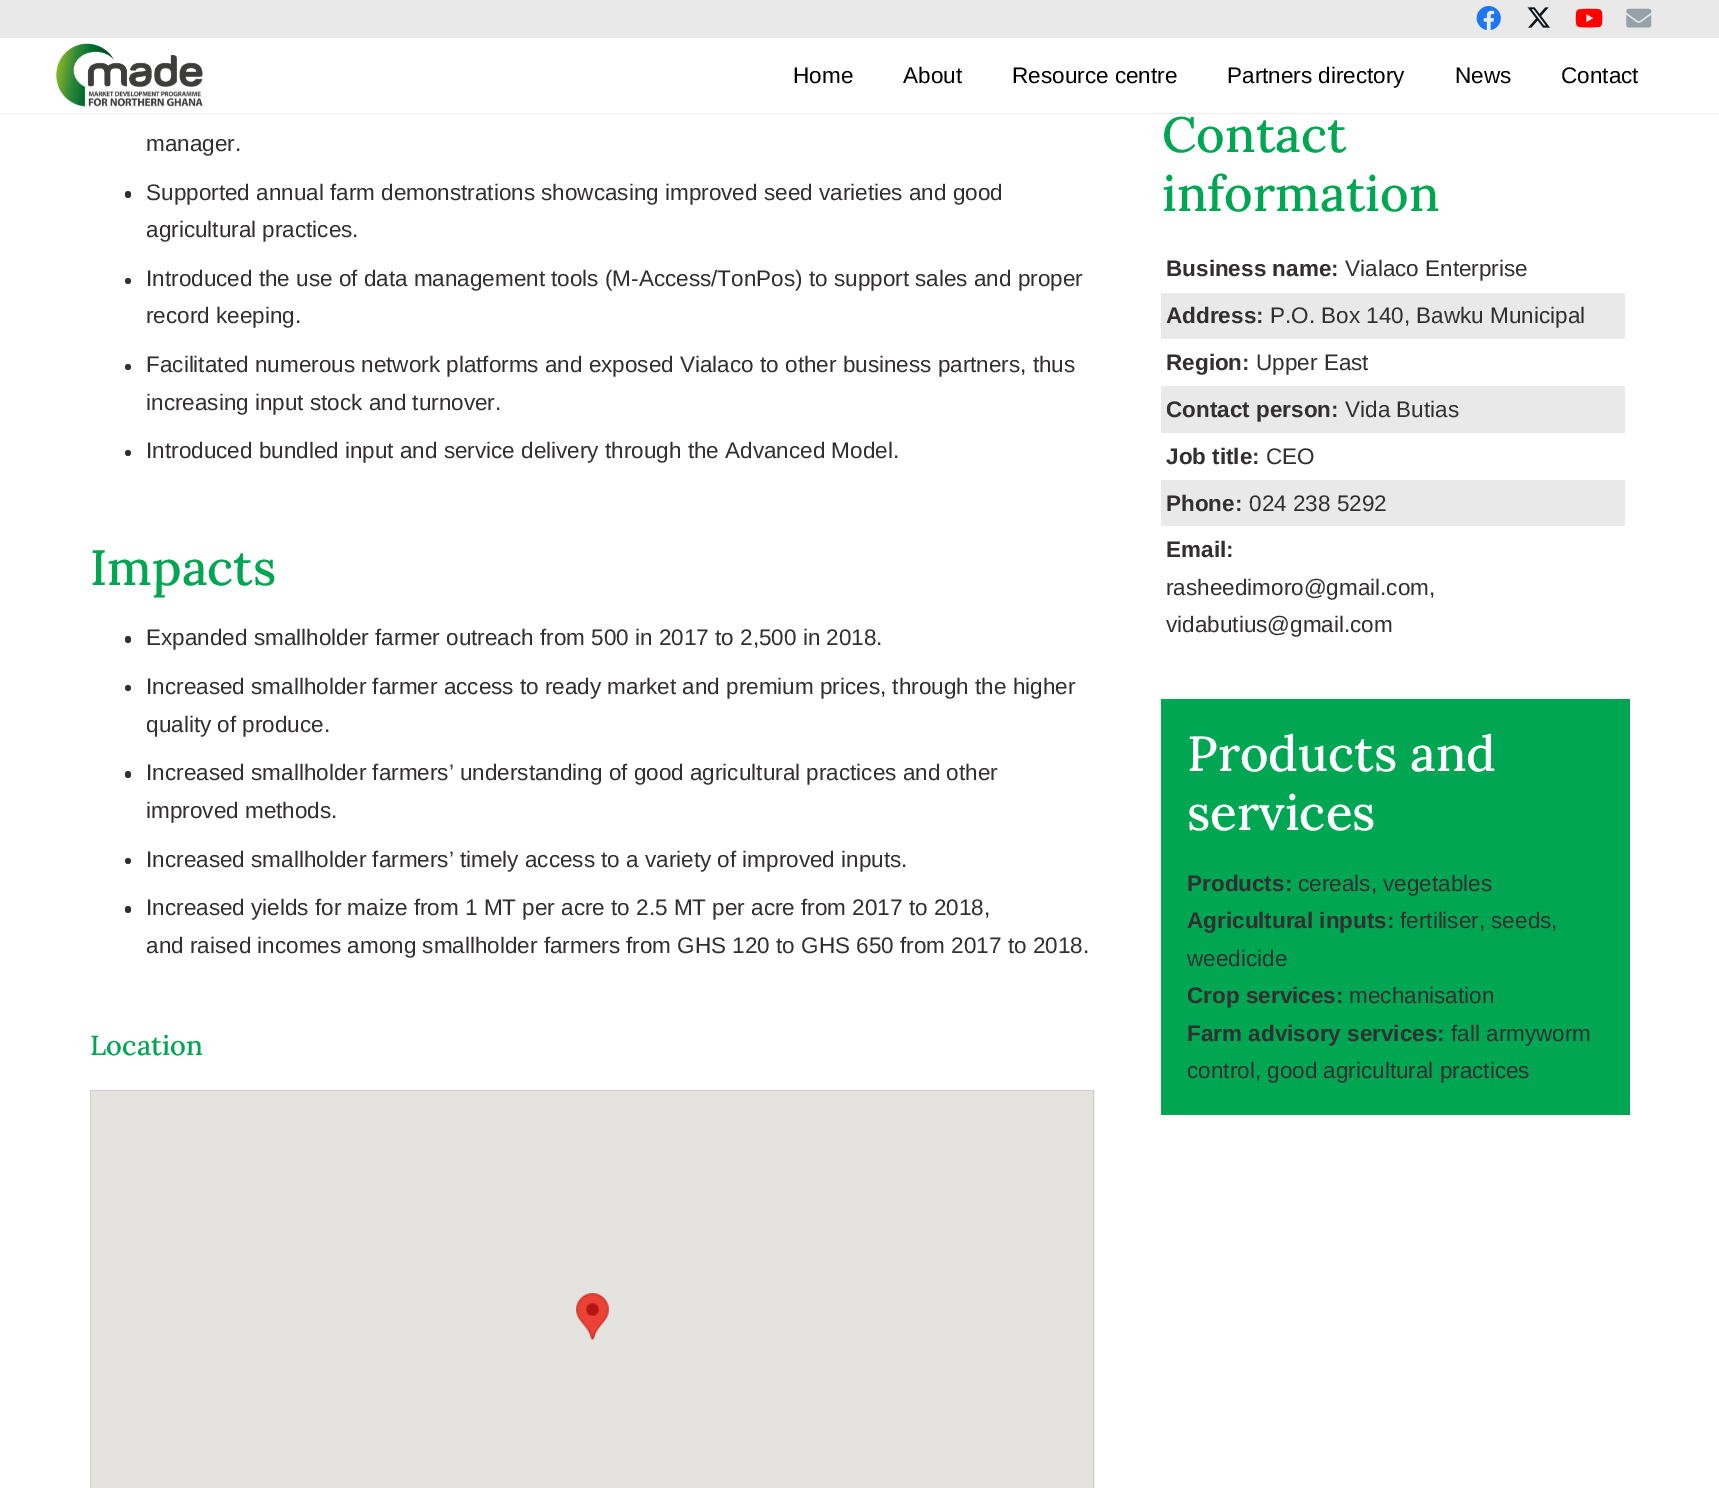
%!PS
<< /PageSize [1719 1488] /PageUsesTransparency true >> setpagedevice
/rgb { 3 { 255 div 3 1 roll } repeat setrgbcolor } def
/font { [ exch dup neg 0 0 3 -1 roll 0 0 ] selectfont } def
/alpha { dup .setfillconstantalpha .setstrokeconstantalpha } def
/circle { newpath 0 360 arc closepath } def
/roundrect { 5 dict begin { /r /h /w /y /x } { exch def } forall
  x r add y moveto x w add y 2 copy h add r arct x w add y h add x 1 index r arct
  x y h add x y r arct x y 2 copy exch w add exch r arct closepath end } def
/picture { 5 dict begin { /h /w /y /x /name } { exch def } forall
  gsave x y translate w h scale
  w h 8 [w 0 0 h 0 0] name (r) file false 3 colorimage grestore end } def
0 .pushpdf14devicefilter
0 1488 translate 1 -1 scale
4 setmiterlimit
255 255 255 rgb
0 0 1719 1488 rectfill
233 233 234 rgb
0 0 1719 38 rectfill
(img/1.rgb) 1476 6 25 24 picture
(img/2.rgb) 1527 7 23 21 picture
(img/3.rgb) 1575 8 28 20 picture
(img/4.rgb) 1626 8 26 20 picture
0.08 alpha
0 0 0 rgb
0 113 1719 1 rectfill
1 alpha
(img/5.rgb) 56 43 147 64 picture
50 47 49 rgb
125 191 6 7 3 roundrect fill
128 281 3 circle fill
128 367 3 circle fill
128 453 3 circle fill
125 636 6 7 3 roundrect fill
128 688 3 circle fill
125 771 6 7 3 roundrect fill
128 861 3 circle fill
125 906 6 7 3 roundrect fill
204 204 204 rgb
90.5 1090.5 1003 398 rectstroke
229 227 223 rgb
91 1091 1002 397 rectfill
(img/6.rgb) 576 1293 33 47 picture
[
  [1161 293 464 46 233 233 234]
  [1161 386 464 47 233 233 234]
  [1161 480 464 46 233 233 234]
  [1161 699 469 416 0 166 81]
] { aload pop rgb rectfill } forall
/LiberationSans-Regular 22.5 font
0 0 0 rgb
[
  [(Home) 793 83]
  [(About) 903 83]
  [(Resource centre) 1012 83]
  [(Partners directory) 1227 83]
  [(News) 1455 83]
  [(Contact) 1561 83]
] { aload pop moveto show } forall
50 47 49 rgb
[
  [(manager.) 146 151]
  [(Supported annual farm demonstrations showcasing improved seed varieties and good) 146 200]
  [(agricultural practices.) 146 237]
  [(Introduced the use of data management tools \(M-Access/TonPos\) to support sales and proper) 146 286]
  [(record keeping.) 146 323]
  [(Facilitated numerous network platforms and exposed Vialaco to other business partners, thus) 146 372]
  [(increasing input stock and turnover.) 146 410]
  [(Introduced bundled input and service delivery through the Advanced Model.) 146 458]
] { aload pop moveto show } forall
/Lora-Medium 49.5 font
0 166 81 rgb
90 585 moveto (Impacts) show
/LiberationSans-Regular 22.5 font
50 47 49 rgb
[
  [(Expanded smallholder farmer outreach from 500 in 2017 to 2,500 in 2018.) 146 645]
  [(Increased smallholder farmer access to ready market and premium prices, through the higher) 146 694]
  [(quality of produce.) 146 732]
  [(Increased smallholder farmers’ understanding of good agricultural practices and other) 146 780]
  [(improved methods.) 146 818]
  [(Increased smallholder farmers’ timely access to a variety of improved inputs.) 146 867]
  [(Increased yields for maize from 1 MT per acre to 2.5 MT per acre from 2017 to 2018,) 146 915]
  [(and raised incomes among smallholder farmers from GHS 120 to GHS 650 from 2017 to 2018.) 146 953]
] { aload pop moveto show } forall
/Lora-Medium 27.5 font
0 166 81 rgb
90 1055 moveto (Location) show
/Lora-Medium 49.5 font
1162 152 moveto (Contact) show
1162 211 moveto (information) show
/LiberationSans-Bold 22.5 font
50 47 49 rgb
1166 276 moveto (Business name:) show
/LiberationSans-Regular 22.5 font
1345 276 moveto (Vialaco Enterprise) show
/LiberationSans-Bold 22.5 font
1166 323 moveto (Address:) show
/LiberationSans-Regular 22.5 font
1270 323 moveto (P.O. Box 140, Bawku Municipal) show
/LiberationSans-Bold 22.5 font
1166 370 moveto (Region:) show
/LiberationSans-Regular 22.5 font
1256 370 moveto (Upper East) show
/LiberationSans-Bold 22.5 font
1166 417 moveto (Contact person:) show
/LiberationSans-Regular 22.5 font
1345 417 moveto (Vida Butias) show
/LiberationSans-Bold 22.5 font
1166 464 moveto (Job title:) show
/LiberationSans-Regular 22.5 font
1266 464 moveto (CEO) show
/LiberationSans-Bold 22.5 font
1166 511 moveto (Phone:) show
/LiberationSans-Regular 22.5 font
1249 511 moveto (024 238 5292) show
/LiberationSans-Bold 22.5 font
1166 557 moveto (Email:) show
/LiberationSans-Regular 22.5 font
1166 595 moveto (rasheedimoro@gmail.com,) show
1166 632 moveto (vidabutius@gmail.com) show
/Lora-Medium 49.5 font
255 255 255 rgb
1187 771 moveto (Products and) show
1187 830 moveto (services) show
/LiberationSans-Bold 22.5 font
50 47 49 rgb
1187 891 moveto (Products:) show
/LiberationSans-Regular 22.5 font
1298 891 moveto (cereals, vegetables) show
/LiberationSans-Bold 22.5 font
1187 928 moveto (Agricultural inputs:) show
/LiberationSans-Regular 22.5 font
1400 928 moveto (fertiliser, seeds,) show
1187 966 moveto (weedicide) show
/LiberationSans-Bold 22.5 font
1187 1003 moveto (Crop services:) show
/LiberationSans-Regular 22.5 font
1349 1003 moveto (mechanisation) show
/LiberationSans-Bold 22.5 font
1187 1041 moveto (Farm advisory services:) show
/LiberationSans-Regular 22.5 font
1451 1041 moveto (fall armyworm) show
1187 1078 moveto (control, good agricultural practices) show
.poppdf14devicefilter showpage
